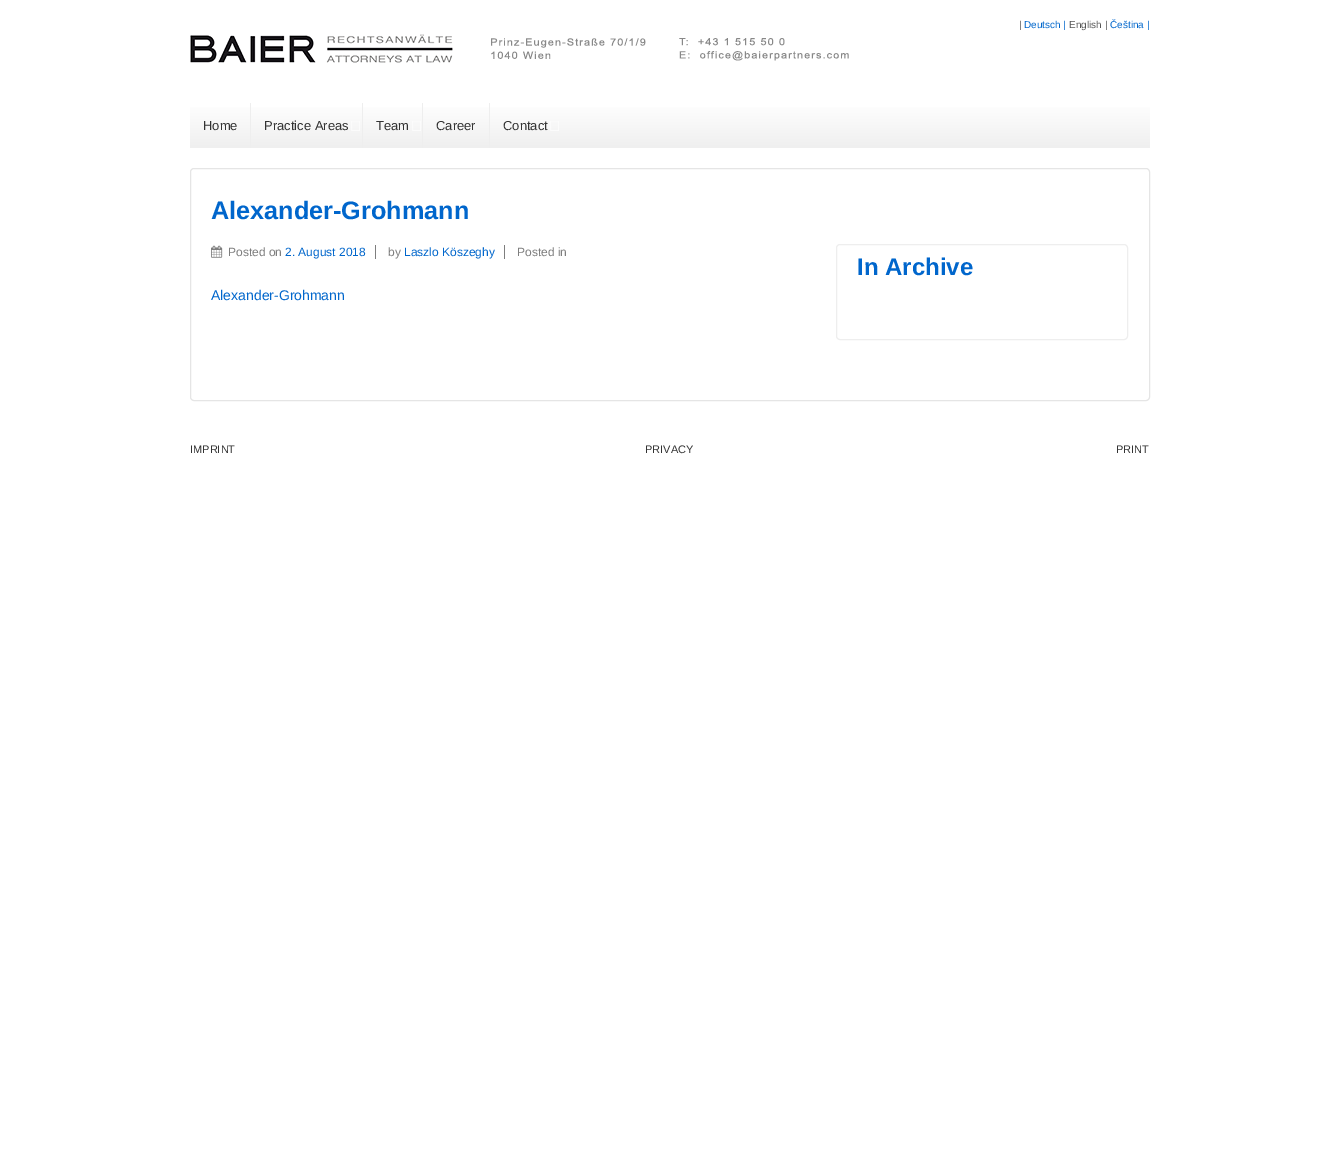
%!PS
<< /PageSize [1339 1160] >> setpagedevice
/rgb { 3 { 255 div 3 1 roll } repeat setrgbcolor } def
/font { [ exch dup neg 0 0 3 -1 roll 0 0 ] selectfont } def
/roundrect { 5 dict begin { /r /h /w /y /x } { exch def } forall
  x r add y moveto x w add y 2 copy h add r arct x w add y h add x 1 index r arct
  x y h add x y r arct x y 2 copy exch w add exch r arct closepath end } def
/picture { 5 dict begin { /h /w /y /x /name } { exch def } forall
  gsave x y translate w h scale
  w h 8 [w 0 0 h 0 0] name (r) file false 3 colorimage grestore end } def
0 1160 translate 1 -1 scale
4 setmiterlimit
255 255 255 rgb
0 0 1339 1160 rectfill
(img/1.rgb) 190 34 659 29 picture
gsave 190 107 moveto 1150 107 lineto 1150 148 lineto 190 148 lineto closepath clip newpath
<< /ShadingType 2 /ColorSpace /DeviceRGB /Coords [670 148 670 103] /Extend [true true] /Function << /FunctionType 2 /Domain [0 1] /C0 [0.937 0.937 0.937] /C1 [0.996 0.996 0.996] /N 1 >> >> shfill grestore
238 238 238 rgb
250 103 1 45 rectfill
(img/2.rgb) 351 121 9 10 picture
362 103 1 45 rectfill
(img/2.rgb) 412 121 9 10 picture
422 103 1 45 rectfill
489 103 1 45 rectfill
(img/2.rgb) 550 121 9 10 picture
229 229 229 rgb
190.5 168.5 959 232 3.5 roundrect stroke
(img/3.rgb) 211 245 12 13 picture
126 126 126 rgb
375 245 1 14 rectfill
504 245 1 14 rectfill
238 238 238 rgb
836.5 244.5 291 95 3.5 roundrect stroke
/LiberationSans-Regular 10 font
85 85 85 rgb
1019 28 moveto (|) show
0 102 204 rgb
1024 28 moveto (Deutsch |) show
85 85 85 rgb
1069 28 moveto (English |) show
0 102 204 rgb
1110 28 moveto (Čeština |) show
/LiberationSans-Regular 13 font
51 51 51 rgb
[
  [(Home) 203 130]
  [(Practice Areas) 264 130]
  [(Team) 376 130]
  [(Career) 436 130]
  [(Contact) 503 130]
] { aload pop moveto show } forall
/LiberationSans-Bold 25.25 font
0 102 204 rgb
211 219 moveto (Alexander-Grohmann) show
/LiberationSans-Regular 12 font
126 126 126 rgb
228 256 moveto (Posted on) show
0 102 204 rgb
285 256 moveto (2. August 2018) show
126 126 126 rgb
388 256 moveto (by) show
0 102 204 rgb
404 256 moveto (Laszlo Köszeghy) show
126 126 126 rgb
517 256 moveto (Posted in) show
/LiberationSans-Regular 14 font
0 102 204 rgb
211 300 moveto (Alexander-Grohmann) show
/LiberationSans-Bold 24 font
857 275 moveto (In Archive) show
/LiberationSans-Regular 11 font
51 51 51 rgb
[
  [(IMPRINT) 190 453]
  [(PRIVACY) 645 453]
  [(PRINT) 1116 453]
] { aload pop moveto show } forall
showpage
